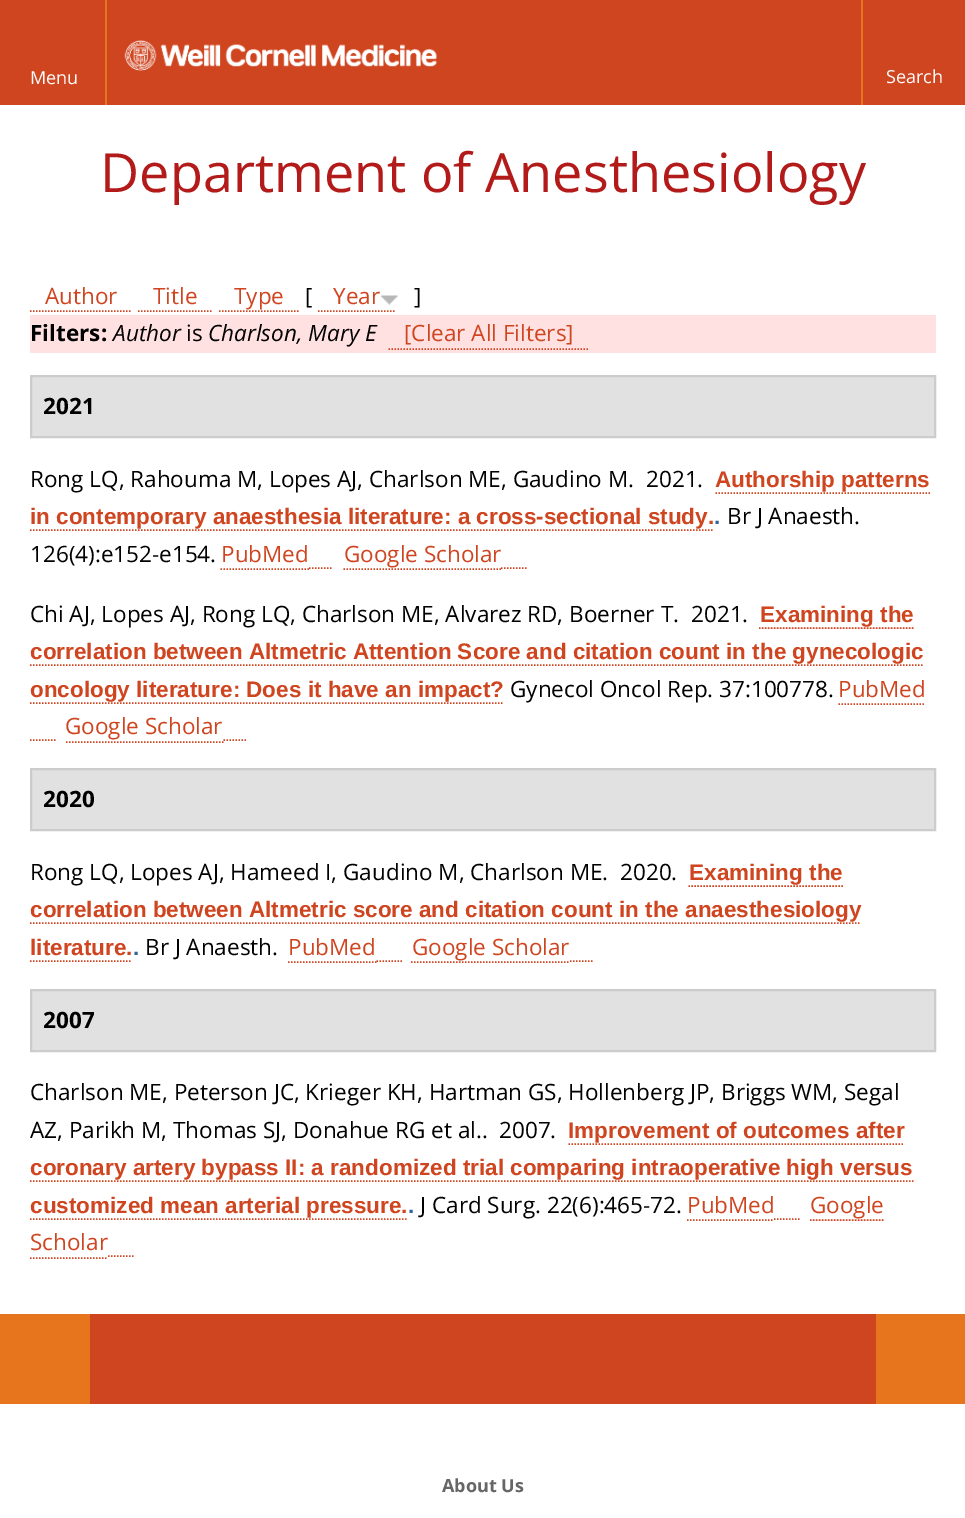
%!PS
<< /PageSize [965 1518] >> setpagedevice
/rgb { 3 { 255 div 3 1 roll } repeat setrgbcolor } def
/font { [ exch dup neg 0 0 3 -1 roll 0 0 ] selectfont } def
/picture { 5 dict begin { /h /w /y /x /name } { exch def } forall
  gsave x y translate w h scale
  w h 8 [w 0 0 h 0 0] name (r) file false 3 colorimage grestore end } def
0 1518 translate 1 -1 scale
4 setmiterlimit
255 255 255 rgb
0 0 965 1518 rectfill
207 69 32 rgb
0 0 965 105 rectfill
(img/1.rgb) 124 40 313 31 picture
231 117 29 rgb
105 0 2 105 rectfill
861 0 2 105 rectfill
207 69 32 rgb
1.5 setlinewidth
[1.5 1.5] 0 setdash
30 311 moveto 132 311 lineto stroke
138 311 moveto 213 311 lineto stroke
219 311 moveto 298.5 311 lineto stroke
318 311 moveto 394.5 311 lineto stroke
(img/2.rgb) 380 295 18 10 picture
255 225 225 rgb
30 315 906 38 rectfill
207 69 32 rgb
388.5 349 moveto 588 349 lineto stroke
225 225 225 rgb
31 376 moveto 935 376 lineto 935 437 lineto 31 437 lineto closepath gsave fill grestore
204 204 204 rgb
2 setlinewidth
[] 0 setdash
stroke
207 69 32 rgb
1.5 setlinewidth
[1.5 1.5] 0 setdash
715.5 493 moveto 930 493 lineto stroke
30 530 moveto 714 530 lineto stroke
220.5 569 moveto 309 569 lineto stroke
309 568 moveto 333 568 lineto stroke
343.5 569 moveto 501 569 lineto stroke
501 568 moveto 526.5 568 lineto stroke
759 628 moveto 913.5 628 lineto stroke
30 665 moveto 924 665 lineto stroke
30 703 moveto 504 703 lineto stroke
838.5 704 moveto 925.5 704 lineto stroke
30 740 moveto 55.5 740 lineto stroke
66 742 moveto 223.5 742 lineto stroke
223.5 740 moveto 247.5 740 lineto stroke
225 225 225 rgb
31 769 moveto 935 769 lineto 935 830 lineto 31 830 lineto closepath gsave fill grestore
204 204 204 rgb
2 setlinewidth
[] 0 setdash
stroke
207 69 32 rgb
1.5 setlinewidth
[1.5 1.5] 0 setdash
688.5 886 moveto 843 886 lineto stroke
30 923 moveto 861 923 lineto stroke
30 961 moveto 132 961 lineto stroke
288 962 moveto 376.5 962 lineto stroke
376.5 961 moveto 402 961 lineto stroke
411 962 moveto 570 962 lineto stroke
570 961 moveto 594 961 lineto stroke
225 225 225 rgb
31 990 moveto 935 990 lineto 935 1051 lineto 31 1051 lineto closepath gsave fill grestore
204 204 204 rgb
2 setlinewidth
[] 0 setdash
stroke
207 69 32 rgb
1.5 setlinewidth
[1.5 1.5] 0 setdash
568.5 1144 moveto 904.5 1144 lineto stroke
30 1181 moveto 913.5 1181 lineto stroke
30 1219 moveto 408 1219 lineto stroke
687 1220 moveto 774 1220 lineto stroke
774 1219 moveto 799.5 1219 lineto stroke
810 1220 moveto 883.5 1220 lineto stroke
30 1258 moveto 108 1258 lineto stroke
108 1256 moveto 133.5 1256 lineto stroke
[
  [90 1314 786 90 207 69 32]
  [0 1314 90 90 231 117 29]
  [876 1314 89 90 231 117 29]
] { aload pop rgb rectfill } forall
/OpenSans-Regular 18 font
255 255 255 rgb
30 84 moveto (Menu) show
886 83 moveto (Search) show
/OpenSans-Regular 54 font
179 27 27 rgb
100 192 moveto (Department of Anesthesiology) show
/OpenSans-Regular 22.5 font
207 69 32 rgb
[
  [(Author) 45 304]
  [(Title) 153 304]
  [(Type) 234 304]
] { aload pop moveto show } forall
0 0 0 rgb
305 304 moveto ([) show
207 69 32 rgb
333 304 moveto (Year) show
0 0 0 rgb
414 304 moveto (]) show
/OpenSans-Bold 22.5 font
30 341 moveto (Filters:) show
/OpenSans-Italic 22.5 font
113 341 moveto (Author) show
/OpenSans-Regular 22.5 font
186 341 moveto (is) show
/OpenSans-Italic 22.5 font
208 341 moveto (Charlson, Mary E) show
/OpenSans-Regular 22.5 font
207 69 32 rgb
404 341 moveto ([Clear All Filters]) show
/OpenSans-Bold 22.5 font
0 0 0 rgb
43 414 moveto (2021) show
/OpenSans-Regular 22.5 font
30 487 moveto (Rong LQ, Rahouma M, Lopes AJ, Charlson ME, Gaudino M.) show
646 487 moveto (2021.) show
/LiberationSans-Bold 22.5 font
207 69 32 rgb
715 487 moveto (Authorship patterns) show
30 524 moveto (in contemporary anaesthesia literature: a cross-sectional study.) show
51 101 153 rgb
714 524 moveto (.) show
/OpenSans-Regular 22.5 font
0 0 0 rgb
727 524 moveto (Br J Anaesth.) show
30 562 moveto (126\(4\):e152-e154.) show
207 69 32 rgb
221 562 moveto (PubMed) show
344 562 moveto (Google Scholar) show
0 0 0 rgb
30 622 moveto (Chi AJ, Lopes AJ, Rong LQ, Charlson ME, Alvarez RD, Boerner T.) show
691 622 moveto (2021.) show
/LiberationSans-Bold 22.5 font
207 69 32 rgb
[
  [(Examining the) 760 622]
  [(correlation between Altmetric Attention Score and citation count in the gynecologic) 30 659]
  [(oncology literature: Does it have an impact?) 30 697]
] { aload pop moveto show } forall
/OpenSans-Regular 22.5 font
0 0 0 rgb
510 697 moveto (Gynecol Oncol Rep. 37:100778.) show
207 69 32 rgb
838 697 moveto (PubMed) show
65 734 moveto (Google Scholar) show
/OpenSans-Bold 22.5 font
0 0 0 rgb
43 807 moveto (2020) show
/OpenSans-Regular 22.5 font
30 880 moveto (Rong LQ, Lopes AJ, Hameed I, Gaudino M, Charlson ME.) show
620 880 moveto (2020.) show
/LiberationSans-Bold 22.5 font
207 69 32 rgb
[
  [(Examining the) 689 880]
  [(correlation between Altmetric score and citation count in the anaesthesiology) 30 917]
  [(literature.) 30 955]
] { aload pop moveto show } forall
51 101 153 rgb
133 955 moveto (.) show
/OpenSans-Regular 22.5 font
0 0 0 rgb
145 955 moveto (Br J Anaesth.) show
207 69 32 rgb
288 955 moveto (PubMed) show
412 955 moveto (Google Scholar) show
/OpenSans-Bold 22.5 font
0 0 0 rgb
43 1028 moveto (2007) show
/OpenSans-Regular 22.5 font
[
  [(Charlson ME, Peterson JC, Krieger KH, Hartman GS, Hollenberg JP, Briggs WM, Segal) 30 1100]
  [(AZ, Parikh M, Thomas SJ, Donahue RG et al..) 30 1138]
  [(2007.) 499 1138]
] { aload pop moveto show } forall
/LiberationSans-Bold 22.5 font
207 69 32 rgb
[
  [(Improvement of outcomes after) 568 1138]
  [(coronary artery bypass II: a randomized trial comparing intraoperative high versus) 30 1175]
  [(customized mean arterial pressure.) 30 1213]
] { aload pop moveto show } forall
51 101 153 rgb
408 1213 moveto (.) show
/OpenSans-Regular 22.5 font
0 0 0 rgb
420 1213 moveto (J Card Surg. 22\(6\):465-72.) show
207 69 32 rgb
[
  [(PubMed) 687 1213]
  [(Google) 810 1213]
  [(Scholar) 30 1250]
] { aload pop moveto show } forall
/OpenSans-Bold 18 font
102 102 102 rgb
442 1492 moveto (About Us) show
showpage
